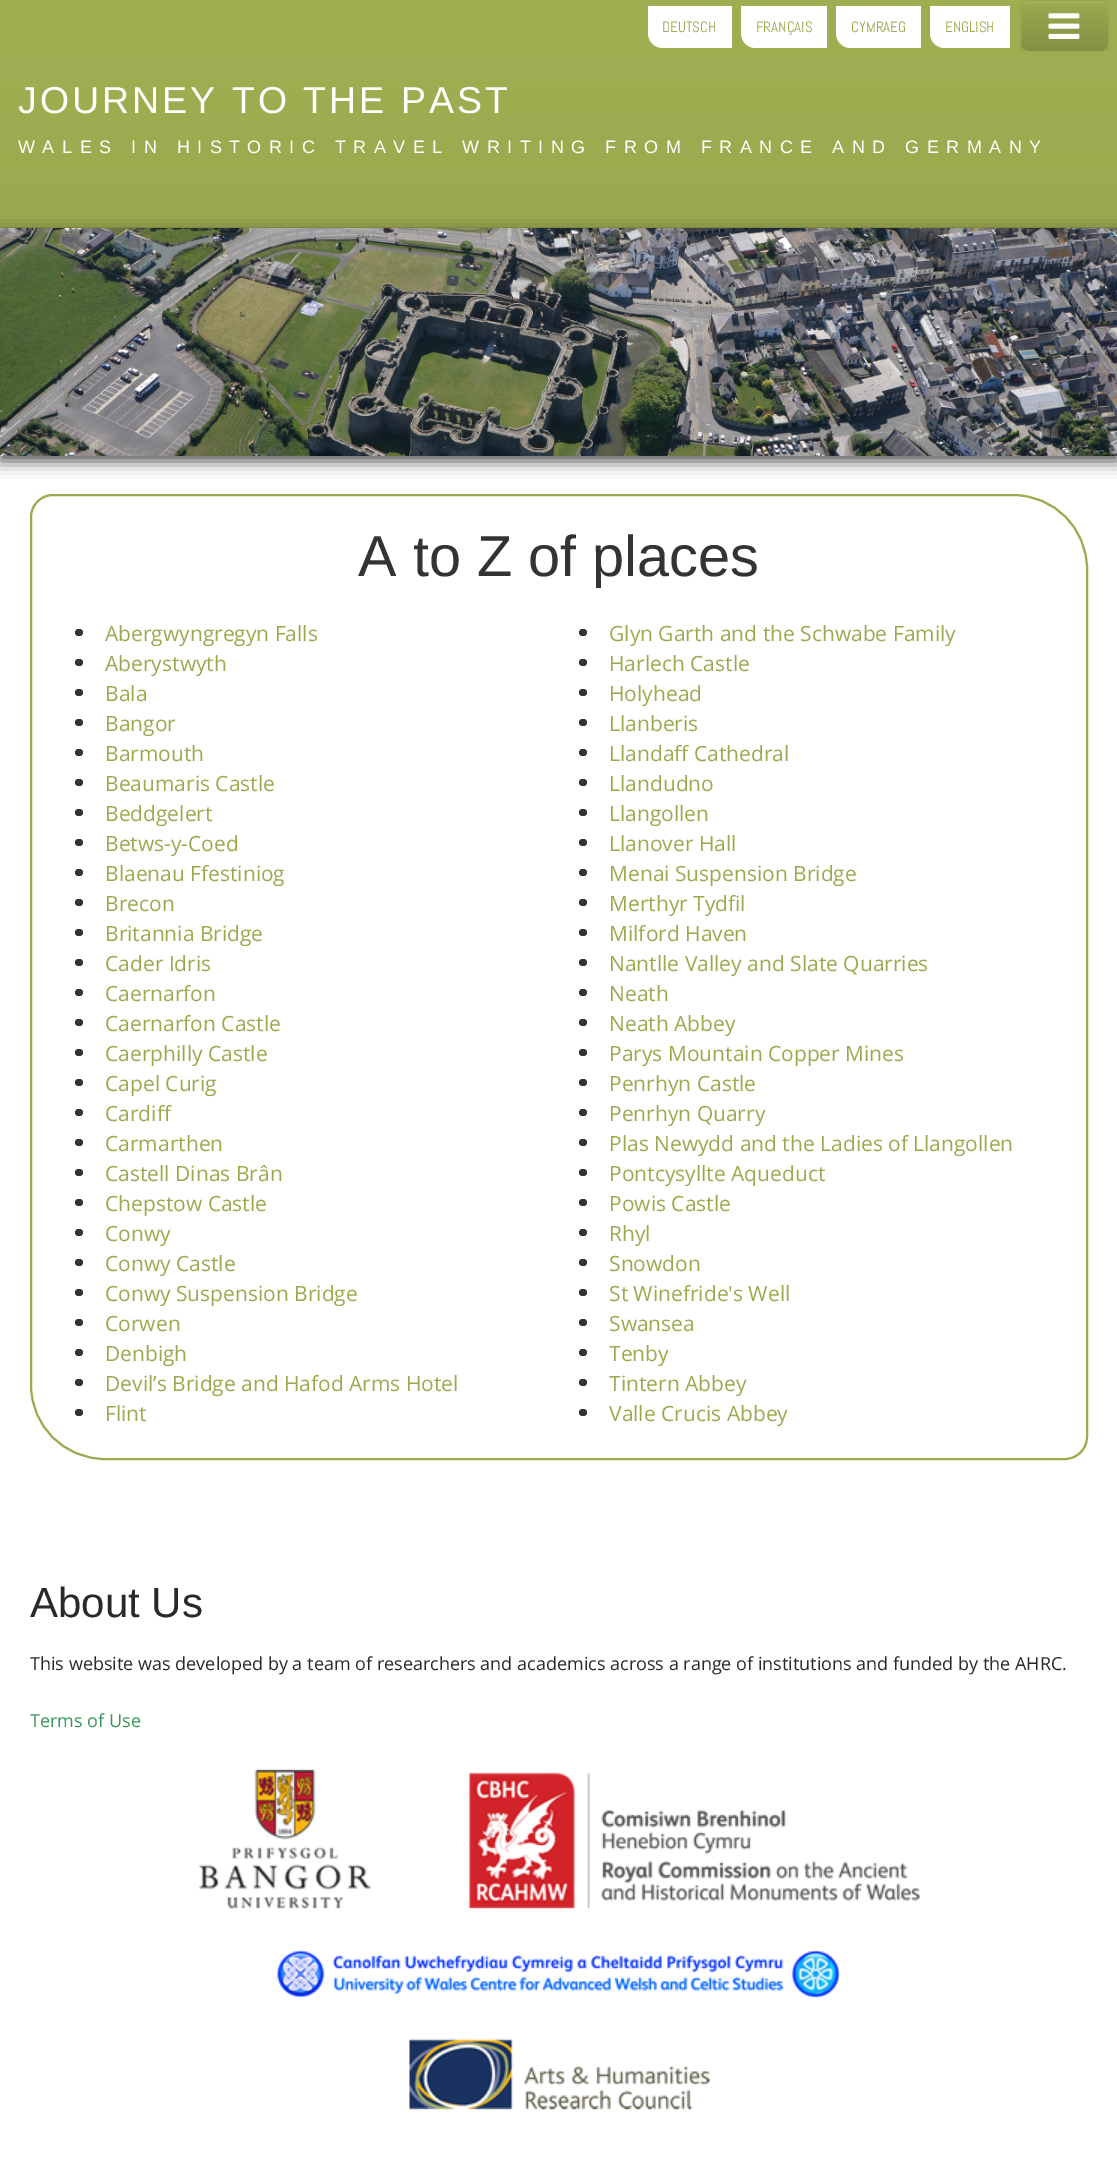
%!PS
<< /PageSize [1117 2158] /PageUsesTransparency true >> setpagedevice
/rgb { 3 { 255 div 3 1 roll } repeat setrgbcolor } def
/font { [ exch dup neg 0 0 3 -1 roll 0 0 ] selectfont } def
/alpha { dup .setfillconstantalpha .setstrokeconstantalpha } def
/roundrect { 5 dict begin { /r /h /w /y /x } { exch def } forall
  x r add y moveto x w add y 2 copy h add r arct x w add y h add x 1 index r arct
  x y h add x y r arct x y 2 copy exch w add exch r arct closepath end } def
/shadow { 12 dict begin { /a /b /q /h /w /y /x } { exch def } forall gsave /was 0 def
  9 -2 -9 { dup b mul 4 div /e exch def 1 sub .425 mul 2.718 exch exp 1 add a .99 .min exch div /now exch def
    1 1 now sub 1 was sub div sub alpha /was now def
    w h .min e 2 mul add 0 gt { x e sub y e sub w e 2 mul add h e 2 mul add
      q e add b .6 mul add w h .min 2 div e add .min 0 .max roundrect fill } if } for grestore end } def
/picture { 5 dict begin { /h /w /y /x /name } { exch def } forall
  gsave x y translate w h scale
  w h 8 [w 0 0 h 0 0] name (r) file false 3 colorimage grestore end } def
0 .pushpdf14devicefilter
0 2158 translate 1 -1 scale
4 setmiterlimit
255 255 255 rgb
0 0 1117 2158 rectfill
gsave 0 0 moveto 1117 0 lineto 1117 228 lineto 0 228 lineto closepath clip newpath
<< /ShadingType 2 /ColorSpace /DeviceRGB /Coords [559 0 559 231] /Extend [true true] /Function << /FunctionType 2 /Domain [0 1] /C0 [0.627 0.686 0.322] /C1 [0.612 0.667 0.31] /N 1 >> >> shfill grestore
648 6 moveto 732 6 lineto 732 48 lineto 663 48 lineto 654.5 48 648 41.5 648 33 curveto closepath fill
741 6 moveto 827 6 lineto 827 48 lineto 756 48 lineto 747.5 48 741 41.5 741 33 curveto closepath fill
836 6 moveto 921 6 lineto 921 48 lineto 851 48 lineto 842.5 48 836 41.5 836 33 curveto closepath fill
930 6 moveto 1010 6 lineto 1010 48 lineto 945 48 lineto 936.5 48 930 41.5 930 33 curveto closepath fill
gsave
1019 0 91 53 9 roundrect clip newpath
gsave 1019 2 moveto 1110 2 lineto 1110 51 lineto 1019 51 lineto closepath clip newpath
<< /ShadingType 2 /ColorSpace /DeviceRGB /Coords [1064 1.5 1064 51] /Extend [true true] /Function << /FunctionType 2 /Domain [0 1] /C0 [0.612 0.667 0.31] /C1 [0.518 0.561 0.263] /N 1 >> >> shfill grestore
grestore
0.2 alpha
1028 3 moveto 1101 3 lineto 1105 3 1108 6 1108 10 curveto 1108 45 lineto 1108 48 lineto 1108 46 1109 45 1109 43 curveto 1109 10 lineto 1109 6 1105 2 1101 2 curveto 1028 2 lineto 1024 2 1020 6 1020 10 curveto 1020 6 1023 3 1028 3 curveto closepath fill
1 alpha
156 170 79 rgb
2 setlinewidth
1020 1 89 51 8 roundrect stroke
(img/1.rgb) 1048 13 32 26 picture
0 0 0 rgb
0 233 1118 228 0 8 0.7 shadow
(img/2.rgb) 0 228 1117 228 picture
156 170 79 rgb
53 495 moveto 1013 495 lineto 1054 495 1087 528 1087 569 curveto 1087 1437 lineto 1087 1449 1077 1459 1065 1459 curveto 105 1459 lineto 64 1459 31 1426 31 1385 curveto 31 517 lineto 31 505 41 495 53 495 curveto closepath stroke
51 51 51 rgb
75 629 8 7 3.5 roundrect fill
579 629 8 7 3.5 roundrect fill
75 659 8 7 3.5 roundrect fill
579 659 8 7 3.5 roundrect fill
75 689 8 7 3.5 roundrect fill
579 689 8 7 3.5 roundrect fill
75 719 8 7 3.5 roundrect fill
579 719 8 7 3.5 roundrect fill
75 749 8 7 3.5 roundrect fill
579 749 8 7 3.5 roundrect fill
75 779 8 7 3.5 roundrect fill
579 779 8 7 3.5 roundrect fill
75 809 8 7 3.5 roundrect fill
579 809 8 7 3.5 roundrect fill
75 839 8 7 3.5 roundrect fill
579 839 8 7 3.5 roundrect fill
75 869 8 7 3.5 roundrect fill
579 869 8 7 3.5 roundrect fill
75 899 8 7 3.5 roundrect fill
579 899 8 7 3.5 roundrect fill
75 929 8 7 3.5 roundrect fill
579 929 8 7 3.5 roundrect fill
75 959 8 7 3.5 roundrect fill
579 959 8 7 3.5 roundrect fill
75 989 8 7 3.5 roundrect fill
579 989 8 7 3.5 roundrect fill
75 1019 8 7 3.5 roundrect fill
579 1019 8 7 3.5 roundrect fill
75 1049 8 7 3.5 roundrect fill
579 1049 8 7 3.5 roundrect fill
75 1079 8 7 3.5 roundrect fill
579 1079 8 7 3.5 roundrect fill
75 1109 8 7 3.5 roundrect fill
579 1109 8 7 3.5 roundrect fill
75 1139 8 7 3.5 roundrect fill
579 1139 8 7 3.5 roundrect fill
75 1169 8 7 3.5 roundrect fill
579 1169 8 7 3.5 roundrect fill
75 1199 8 7 3.5 roundrect fill
579 1199 8 7 3.5 roundrect fill
75 1229 8 7 3.5 roundrect fill
579 1229 8 7 3.5 roundrect fill
75 1259 8 7 3.5 roundrect fill
579 1259 8 7 3.5 roundrect fill
75 1289 8 7 3.5 roundrect fill
579 1289 8 7 3.5 roundrect fill
75 1319 8 7 3.5 roundrect fill
579 1319 8 7 3.5 roundrect fill
75 1349 8 7 3.5 roundrect fill
579 1349 8 7 3.5 roundrect fill
75 1379 8 7 3.5 roundrect fill
579 1379 8 7 3.5 roundrect fill
75 1409 8 7 3.5 roundrect fill
579 1409 8 7 3.5 roundrect fill
(img/3.rgb) 199 1769 721 341 picture
/Abel-Regular 15 font
156 170 79 rgb
[
  [(DEUTSCH) 662 32]
  [(FRANÇAIS) 756 32]
  [(CYMRAEG) 851 32]
  [(ENGLISH) 945 32]
] { aload pop moveto show } forall
/LiberationSans-Regular 37.5 font
255 255 255 rgb
18 113 moveto 3 0 (JOURNEY TO THE PAST) ashow
/LiberationSans-Regular 18 font
18 153 moveto 7.5 0 (WALES IN HISTORIC TRAVEL WRITING FROM FRANCE AND GERMANY) ashow
/LiberationSans-Regular 57.75 font
51 51 51 rgb
358 576 moveto (A to Z of places) show
/OpenSans-Regular 21 font
156 170 79 rgb
[
  [(Abergwyngregyn Falls) 105 641]
  [(Glyn Garth and the Schwabe Family) 609 641]
  [(Aberystwyth) 105 671]
  [(Harlech Castle) 609 671]
  [(Bala) 105 701]
  [(Holyhead) 609 701]
  [(Bangor) 105 731]
  [(Llanberis) 609 731]
  [(Barmouth) 105 761]
  [(Llandaff Cathedral) 609 761]
  [(Beaumaris Castle) 105 791]
  [(Llandudno) 609 791]
  [(Beddgelert) 105 821]
  [(Llangollen) 609 821]
  [(Betws-y-Coed) 105 851]
  [(Llanover Hall) 609 851]
  [(Blaenau Ffestiniog) 105 881]
  [(Menai Suspension Bridge) 609 881]
  [(Brecon) 105 911]
  [(Merthyr Tydfil) 609 911]
  [(Britannia Bridge) 105 941]
  [(Milford Haven) 609 941]
  [(Cader Idris) 105 971]
  [(Nantlle Valley and Slate Quarries) 609 971]
  [(Caernarfon) 105 1001]
  [(Neath) 609 1001]
  [(Caernarfon Castle) 105 1031]
  [(Neath Abbey) 609 1031]
  [(Caerphilly Castle) 105 1061]
  [(Parys Mountain Copper Mines) 609 1061]
  [(Capel Curig) 105 1091]
  [(Penrhyn Castle) 609 1091]
  [(Cardiff) 105 1121]
  [(Penrhyn Quarry) 609 1121]
  [(Carmarthen) 105 1151]
  [(Plas Newydd and the Ladies of Llangollen) 609 1151]
  [(Castell Dinas Brân) 105 1181]
  [(Pontcysyllte Aqueduct) 609 1181]
  [(Chepstow Castle) 105 1211]
  [(Powis Castle) 609 1211]
  [(Conwy) 105 1241]
  [(Rhyl) 609 1241]
  [(Conwy Castle) 105 1271]
  [(Snowdon) 609 1271]
  [(Conwy Suspension Bridge) 105 1301]
  [(St Winefride's Well) 609 1301]
  [(Corwen) 105 1331]
  [(Swansea) 609 1331]
  [(Denbigh) 105 1361]
  [(Tenby) 609 1361]
  [(Devil’s Bridge and Hafod Arms Hotel) 105 1391]
  [(Tintern Abbey) 609 1391]
  [(Flint) 105 1421]
  [(Valle Crucis Abbey) 609 1421]
] { aload pop moveto show } forall
/LiberationSans-Regular 42 font
41 41 41 rgb
30 1617 moveto (About Us) show
/OpenSans-Regular 18 font
30 1670 moveto (This website was developed by a team of researchers and academics across a range of institutions and funded by the AHRC.) show
54 150 86 rgb
30 1727 moveto (Terms of Use) show
.poppdf14devicefilter showpage
